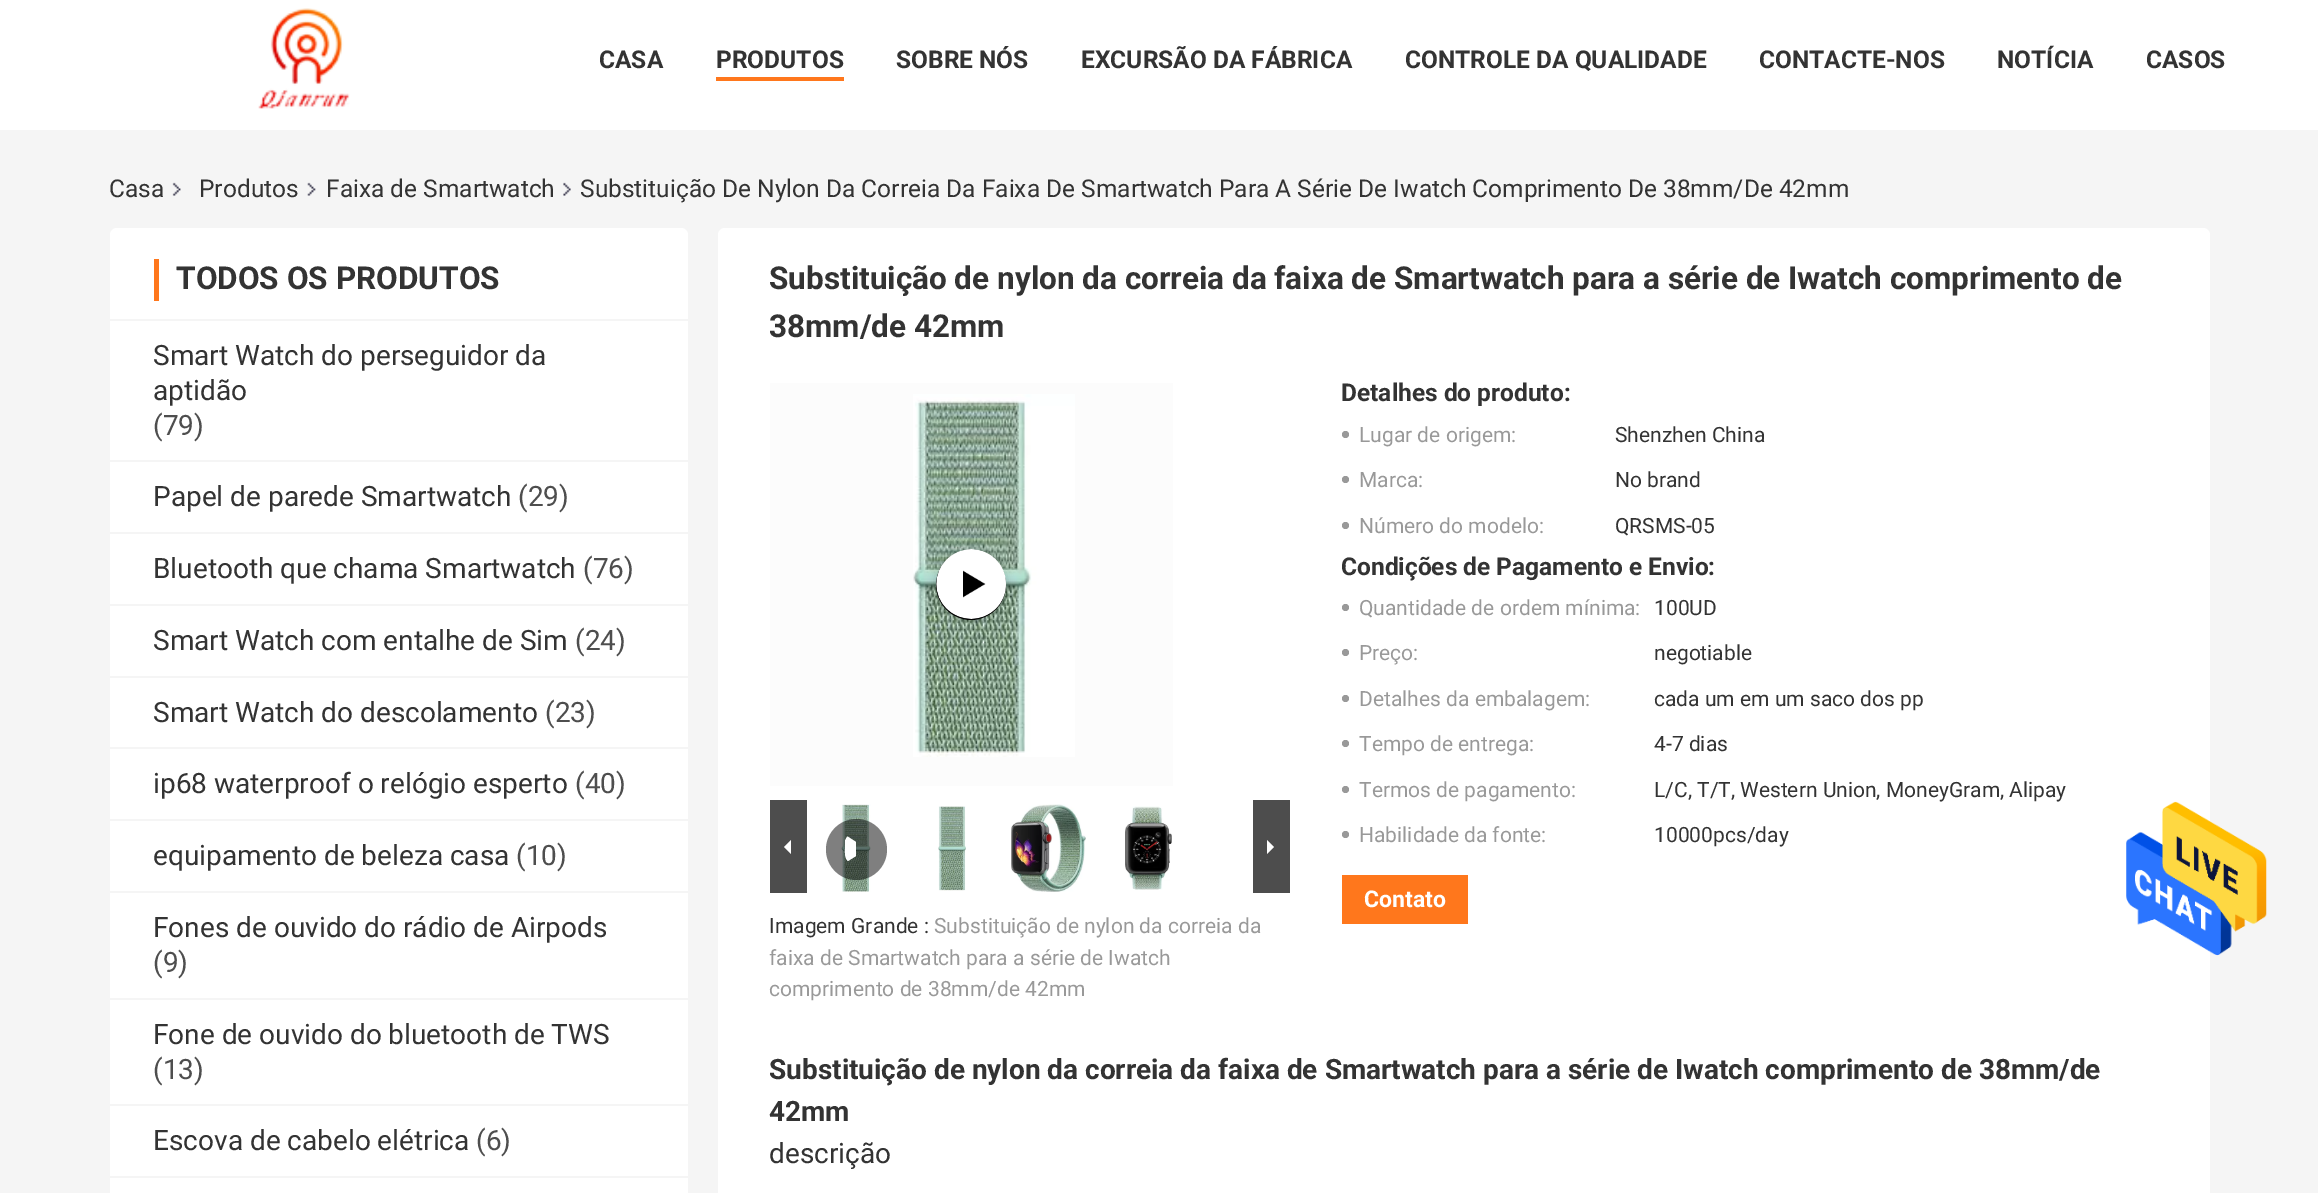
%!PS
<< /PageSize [2318 1193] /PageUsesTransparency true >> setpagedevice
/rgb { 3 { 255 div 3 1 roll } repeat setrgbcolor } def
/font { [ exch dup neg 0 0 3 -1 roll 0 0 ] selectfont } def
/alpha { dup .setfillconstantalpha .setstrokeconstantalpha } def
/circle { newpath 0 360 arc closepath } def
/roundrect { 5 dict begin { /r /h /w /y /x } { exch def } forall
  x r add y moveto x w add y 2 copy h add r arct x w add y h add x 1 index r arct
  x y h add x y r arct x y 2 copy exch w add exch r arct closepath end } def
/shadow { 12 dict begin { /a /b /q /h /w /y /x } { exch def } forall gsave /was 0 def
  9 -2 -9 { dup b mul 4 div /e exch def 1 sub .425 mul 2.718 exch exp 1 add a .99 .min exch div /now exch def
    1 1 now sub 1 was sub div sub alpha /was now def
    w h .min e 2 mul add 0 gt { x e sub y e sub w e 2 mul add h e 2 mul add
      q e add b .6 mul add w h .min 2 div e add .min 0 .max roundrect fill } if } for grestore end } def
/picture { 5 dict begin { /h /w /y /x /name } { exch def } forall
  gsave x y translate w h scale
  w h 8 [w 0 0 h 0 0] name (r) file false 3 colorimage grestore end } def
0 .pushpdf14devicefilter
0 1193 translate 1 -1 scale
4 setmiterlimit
245 245 245 rgb
0 0 2318 1193 rectfill
255 255 255 rgb
0 0 2318 130 rectfill
(img/1.rgb) 258 8 92 101 picture
255 119 28 rgb
716 77 128 4 rectfill
(img/2.rgb) 172 182 9 14 picture
(img/3.rgb) 307 182 9 14 picture
(img/4.rgb) 563 182 8 14 picture
255 255 255 rgb
110 228 578 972 7 roundrect fill
[
  [110 319 578 2 245 245 245]
  [154 259 5 42 255 119 28]
  [110 460 578 2 245 245 245]
  [110 532 578 2 245 245 245]
  [110 604 578 2 245 245 245]
  [110 676 578 2 245 245 245]
  [110 747 578 2 245 245 245]
  [110 819 578 2 245 245 245]
  [110 891 578 2 245 245 245]
  [110 998 578 2 245 245 245]
  [110 1104 578 2 245 245 245]
  [110 1176 578 2 245 245 245]
] { aload pop rgb rectfill } forall
255 255 255 rgb
718 228 1492 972 7 roundrect fill
252 252 252 rgb
770 383 403 403 rectfill
153 153 153 rgb
1345.5 434.5 3.5 circle fill
1345.5 479.5 3.5 circle fill
1345.5 525.5 3.5 circle fill
1345.5 607.5 3.5 circle fill
1345.5 652.5 3.5 circle fill
1345.5 698.5 3.5 circle fill
1345.5 743.5 3.5 circle fill
1345.5 789.5 3.5 circle fill
1345.5 834.5 3.5 circle fill
255 119 28 rgb
1342 875 126 49 rectfill
(img/5.rgb) 913 394 162 363 picture
0 0 0 rgb
936 550 70 70 35 4 0.2 shadow
971 585 35 circle fill
(img/6.rgb) 936 549 71 70 picture
77 77 77 rgb
770 800 37 93 rectfill
255 255 255 rgb
791 840 moveto 791 854 lineto 784 847 lineto closepath fill
(img/7.rgb) 841 804 30 88 picture
0.5 alpha
0 0 0 rgb
856.5 849.5 30.5 circle fill
1 alpha
255 255 255 rgb
845 841 moveto 845.5 839 846.5 837.5 847.5 836.5 curveto 856 842 lineto 856 856 lineto 848 861 lineto 844.5 858.5 845 852.5 845 849 curveto closepath fill
(img/8.rgb) 938 806 28 85 picture
(img/9.rgb) 1011 804 75 88 picture
(img/10.rgb) 1125 806 47 84 picture
77 77 77 rgb
1253 800 37 93 rectfill
255 255 255 rgb
1267 854 moveto 1267 840 lineto 1274 847 lineto closepath fill
(img/11.rgb) 2126 801 141 155 picture
/Roboto-Bold 24.5 font
51 51 51 rgb
[
  [(CASA) 599 68]
  [(PRODUTOS) 716 68]
  [(SOBRE NÓS) 896 68]
  [(EXCURSÃO DA FÁBRICA) 1081 68]
  [(CONTROLE DA QUALIDADE) 1405 68]
  [(CONTACTE-NOS) 1759 68]
  [(NOTÍCIA) 1997 68]
  [(CASOS) 2146 68]
] { aload pop moveto show } forall
/Roboto-Regular 24.5 font
[
  [(Casa) 109 197]
  [(Produtos) 199 197]
  [(Faixa de Smartwatch) 326 197]
  [(Substituição De Nylon Da Correia Da Faixa De Smartwatch Para A Série De Iwatch Comprimento De 38mm/De 42mm) 580 197]
] { aload pop moveto show } forall
/Roboto-Bold 31.5 font
176 289 moveto (TODOS OS PRODUTOS) show
/Roboto-Regular 28 font
153 365 moveto (Smart Watch do perseguidor da) show
153 400 moveto (aptidão) show
78 78 78 rgb
153 435 moveto (\(79\)) show
51 51 51 rgb
153 506 moveto (Papel de parede Smartwatch) show
78 78 78 rgb
518 506 moveto (\(29\)) show
51 51 51 rgb
153 578 moveto (Bluetooth que chama Smartwatch) show
78 78 78 rgb
583 578 moveto (\(76\)) show
51 51 51 rgb
153 650 moveto (Smart Watch com entalhe de Sim) show
78 78 78 rgb
575 650 moveto (\(24\)) show
51 51 51 rgb
153 722 moveto (Smart Watch do descolamento) show
78 78 78 rgb
545 722 moveto (\(23\)) show
51 51 51 rgb
153 793 moveto (ip68 waterproof o relógio esperto) show
78 78 78 rgb
575 793 moveto (\(40\)) show
51 51 51 rgb
153 865 moveto (equipamento de beleza casa) show
78 78 78 rgb
516 865 moveto (\(10\)) show
51 51 51 rgb
153 937 moveto (Fones de ouvido do rádio de Airpods) show
78 78 78 rgb
153 972 moveto (\(9\)) show
51 51 51 rgb
153 1044 moveto (Fone de ouvido do bluetooth de TWS) show
78 78 78 rgb
153 1079 moveto (\(13\)) show
51 51 51 rgb
153 1150 moveto (Escova de cabelo elétrica) show
78 78 78 rgb
476 1150 moveto (\(6\)) show
/Roboto-Bold 31.5 font
51 51 51 rgb
769 289 moveto (Substituição de nylon da correia da faixa de Smartwatch para a série de Iwatch comprimento de) show
769 337 moveto (38mm/de 42mm) show
/Roboto-Bold 24.5 font
1341 401 moveto (Detalhes do produto:) show
/Roboto-Regular 21 font
153 153 153 rgb
1359 442 moveto (Lugar de origem:) show
51 51 51 rgb
1615 442 moveto (Shenzhen China) show
153 153 153 rgb
1359 487 moveto (Marca:) show
51 51 51 rgb
1615 487 moveto (No brand) show
153 153 153 rgb
1359 533 moveto (Número do modelo:) show
51 51 51 rgb
1615 533 moveto (QRSMS-05) show
/Roboto-Bold 24.5 font
1341 575 moveto (Condições de Pagamento e Envio:) show
/Roboto-Regular 21 font
153 153 153 rgb
1359 615 moveto (Quantidade de ordem mínima:) show
51 51 51 rgb
1654 615 moveto (100UD) show
153 153 153 rgb
1359 660 moveto (Preço:) show
51 51 51 rgb
1654 660 moveto (negotiable) show
153 153 153 rgb
1359 706 moveto (Detalhes da embalagem:) show
51 51 51 rgb
1654 706 moveto (cada um em um saco dos pp) show
153 153 153 rgb
1359 751 moveto (Tempo de entrega:) show
51 51 51 rgb
1654 751 moveto (4-7 dias) show
153 153 153 rgb
1359 797 moveto (Termos de pagamento:) show
51 51 51 rgb
1654 797 moveto (L/C, T/T, Western Union, MoneyGram, Alipay) show
153 153 153 rgb
1359 842 moveto (Habilidade da fonte:) show
51 51 51 rgb
1654 842 moveto (10000pcs/day) show
/Roboto-Bold 23 font
255 255 255 rgb
1364 907 moveto (Contato) show
/Roboto-Regular 21 font
51 51 51 rgb
769 933 moveto (Imagem Grande :) show
153 153 153 rgb
[
  [(Substituição de nylon da correia da) 934 933]
  [(faixa de Smartwatch para a série de Iwatch) 769 965]
  [(comprimento de 38mm/de 42mm) 769 996]
] { aload pop moveto show } forall
/Roboto-Bold 28 font
51 51 51 rgb
769 1079 moveto (Substituição de nylon da correia da faixa de Smartwatch para a série de Iwatch comprimento de 38mm/de) show
769 1121 moveto (42mm) show
/Roboto-Regular 28 font
769 1163 moveto (descrição) show
.poppdf14devicefilter showpage
